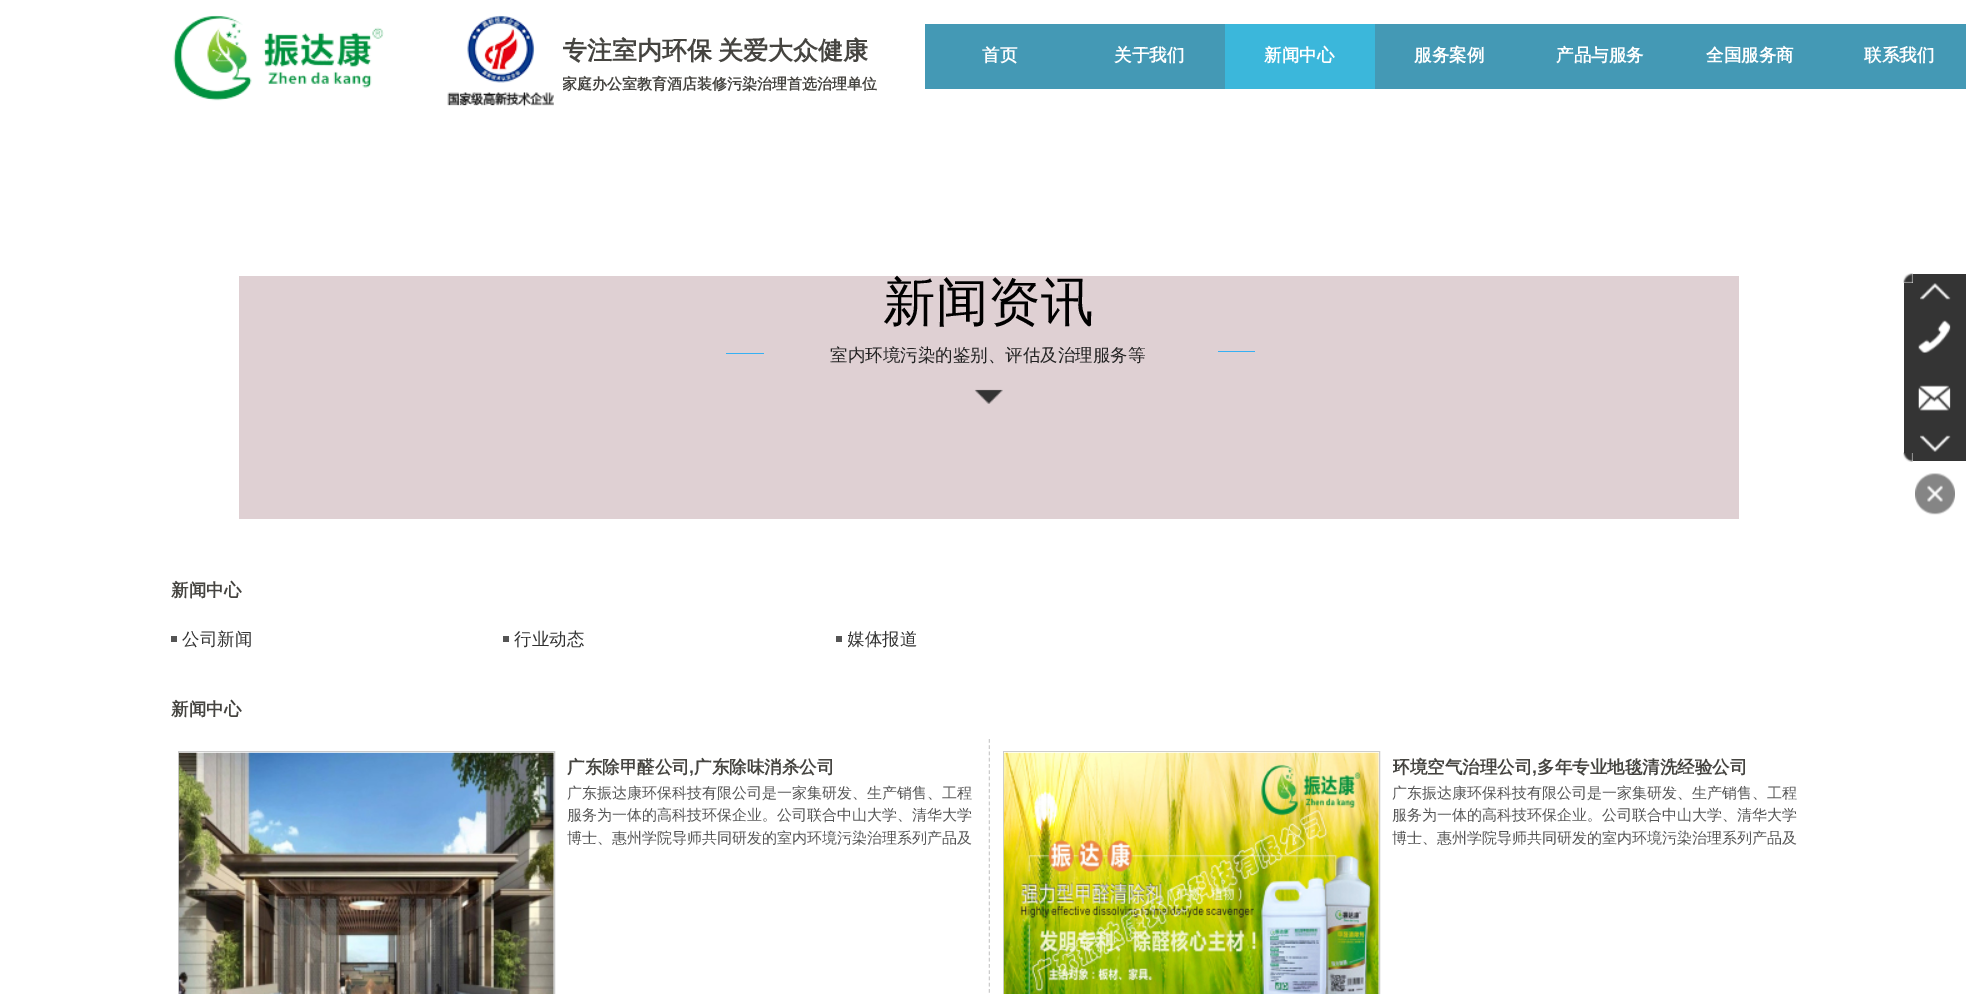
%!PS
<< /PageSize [1966 994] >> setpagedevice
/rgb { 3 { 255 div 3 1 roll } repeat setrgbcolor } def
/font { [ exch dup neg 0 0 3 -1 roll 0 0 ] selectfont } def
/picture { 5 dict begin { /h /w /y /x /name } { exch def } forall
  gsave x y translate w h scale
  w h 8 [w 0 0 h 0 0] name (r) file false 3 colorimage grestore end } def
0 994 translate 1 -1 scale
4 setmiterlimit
255 255 255 rgb
0 0 1966 994 rectfill
(img/1.rgb) 173 15 211 86 picture
(img/2.rgb) 447 15 107 92 picture
[
  [925 24 1041 65 68 153 181]
  [1225 24 150 65 59 183 219]
  [239 276 1500 243 223 208 211]
  [1218 351 37 1 54 176 243]
  [726 353 38 1 54 176 243]
] { aload pop rgb rectfill } forall
(img/3.rgb) 974 389 29 15 picture
[
  [171 636 6 6 85 85 85]
  [503 636 6 6 85 85 85]
  [836 636 6 6 85 85 85]
] { aload pop rgb rectfill } forall
gsave
165 739 825 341 rectclip
204 204 204 rgb
1.2 setlinewidth
[3.75 2.5] 0 setdash
989.5 739 moveto 989.5 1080 lineto stroke
grestore
204 204 204 rgb
178.5 751.5 376 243 rectstroke
(img/4.rgb) 178 752 376 242 picture
1003.5 751.5 376 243 rectstroke
(img/5.rgb) 1003 752 376 242 picture
(img/6.rgb) 1903 273 10 10 picture
52 52 52 rgb
1913 274 53 9 rectfill
1904 283 62 170 rectfill
(img/7.rgb) 1920 283 31 17 picture
(img/8.rgb) 1918 320 33 33 picture
(img/9.rgb) 1918 385 33 26 picture
(img/10.rgb) 1920 435 31 17 picture
(img/11.rgb) 1903 452 10 10 picture
1913 453 53 8 rectfill
(img/12.rgb) 1915 473 40 42 picture
gsave
563 34 341 36 rectclip
/WenQuanYiZenHei-Bold 25 font
69 68 64 rgb
562 59 moveto -1 0 32 (专注室内环保 关爱大众健康) widthshow
grestore
gsave
563 75 378 41 rectclip
/WenQuanYiZenHei-Bold 15 font
69 68 64 rgb
562 89 moveto (家庭办公室教育酒店装修污染治理首选治理单位) show
grestore
/WenQuanYiZenHei-Bold 17.5 font
255 255 255 rgb
[
  [(首页) 982 61]
  [(关于我们) 1114 61]
  [(新闻中心) 1264 61]
  [(服务案例) 1414 61]
  [(产品与服务) 1556 61]
  [(全国服务商) 1706 61]
  [(联系我们) 1864 61]
] { aload pop moveto show } forall
/WenQuanYiZenHei-Medium 52.5 font
0 0 0 rgb
883 320 moveto (新闻资讯) show
/WenQuanYiZenHei-Medium 17.5 font
34 34 34 rgb
830 361 moveto (室内环境污染的鉴别、评估及治理服务等) show
/WenQuanYiZenHei-Bold 17.5 font
69 68 64 rgb
171 596 moveto (新闻中心) show
/WenQuanYiZenHei-Medium 17.5 font
51 51 51 rgb
182 645 moveto (公司新闻) show
514 645 moveto (行业动态) show
gsave
848 620 296 38 rectclip
847 645 moveto (媒体报道) show
grestore
/WenQuanYiZenHei-Bold 17.5 font
69 68 64 rgb
171 715 moveto (新闻中心) show
567 773 moveto (广东除甲醛公司) show
/LiberationSans-Bold 17.5 font
689 773 moveto (,) show
/WenQuanYiZenHei-Bold 17.5 font
694 773 moveto (广东除味消杀公司) show
/WenQuanYiZenHei-Medium 15 font
85 85 85 rgb
[
  [(广东振达康环保科技有限公司是一家集研发、生产销售、工程) 567 798]
  [(服务为一体的高科技环保企业。公司联合中山大学、清华大学) 567 820]
  [(博士、惠州学院导师共同研发的室内环境污染治理系列产品及) 567 843]
] { aload pop moveto show } forall
gsave
1393 751 416 30 rectclip
/WenQuanYiZenHei-Bold 17.5 font
69 68 64 rgb
1392 773 moveto (环境空气治理公司) show
grestore
/LiberationSans-Bold 17.5 font
69 68 64 rgb
1532 773 moveto (,) show
/WenQuanYiZenHei-Bold 17.5 font
1537 773 moveto (多年专业地毯清洗经验公司) show
/WenQuanYiZenHei-Medium 15 font
85 85 85 rgb
[
  [(广东振达康环保科技有限公司是一家集研发、生产销售、工程) 1392 798]
  [(服务为一体的高科技环保企业。公司联合中山大学、清华大学) 1392 820]
  [(博士、惠州学院导师共同研发的室内环境污染治理系列产品及) 1392 843]
] { aload pop moveto show } forall
showpage
